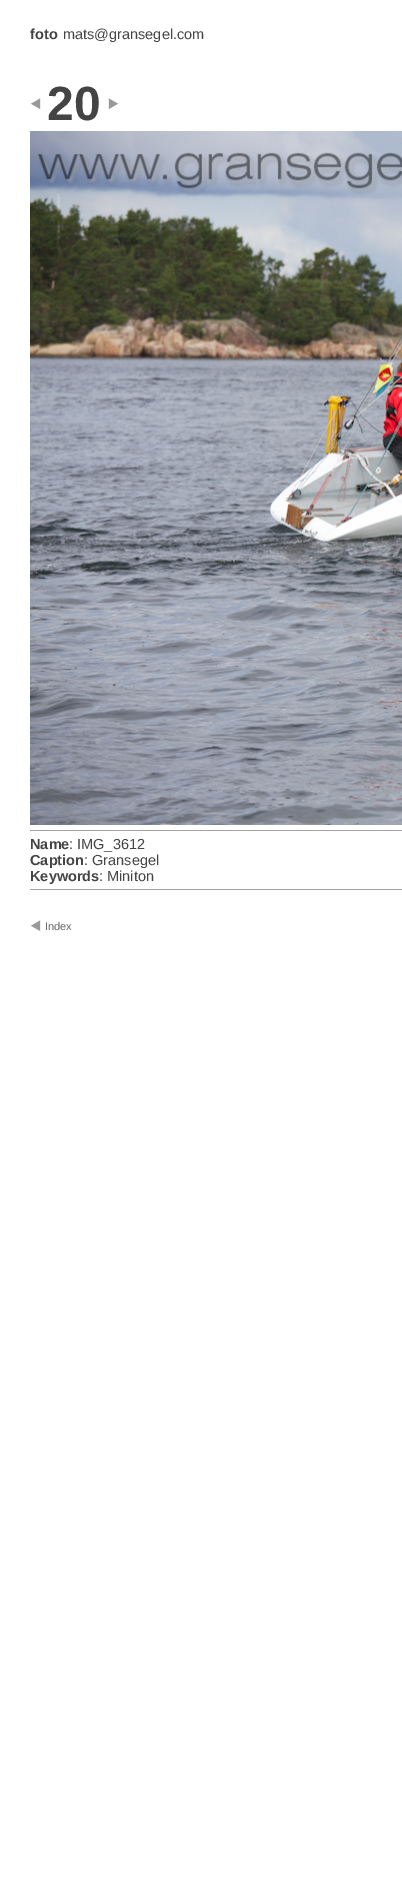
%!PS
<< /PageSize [402 1881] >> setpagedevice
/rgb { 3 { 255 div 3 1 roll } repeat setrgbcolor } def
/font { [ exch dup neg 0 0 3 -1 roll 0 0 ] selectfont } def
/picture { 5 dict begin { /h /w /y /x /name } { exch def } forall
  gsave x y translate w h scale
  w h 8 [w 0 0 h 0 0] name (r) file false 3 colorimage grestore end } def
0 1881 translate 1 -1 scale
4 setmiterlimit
255 255 255 rgb
0 0 402 1881 rectfill
(img/1.rgb) 30 98 11 11 picture
(img/2.rgb) 108 98 11 11 picture
(img/3.rgb) 30 131 372 694 picture
162 162 162 rgb
30 830 372 1 rectfill
30 889 372 1 rectfill
(img/1.rgb) 30 920 11 11 picture
/LiberationSans-Bold 14.5 font
68 68 68 rgb
30 39 moveto (foto) show
/LiberationSans-Regular 14.5 font
63 39 moveto (mats@gransegel.com) show
/LiberationSans-Bold 48 font
47 120 moveto (20) show
/LiberationSans-Bold 14.5 font
30 849 moveto (Name) show
/LiberationSans-Regular 14.5 font
69 849 moveto (: IMG_3612) show
/LiberationSans-Bold 14.5 font
30 865 moveto (Caption) show
/LiberationSans-Regular 14.5 font
84 865 moveto (: Gransegel) show
/LiberationSans-Bold 14.5 font
30 881 moveto (Keywords) show
/LiberationSans-Regular 14.5 font
99 881 moveto (: Miniton) show
/LiberationSans-Regular 11 font
102 102 102 rgb
45 930 moveto (Index) show
showpage
